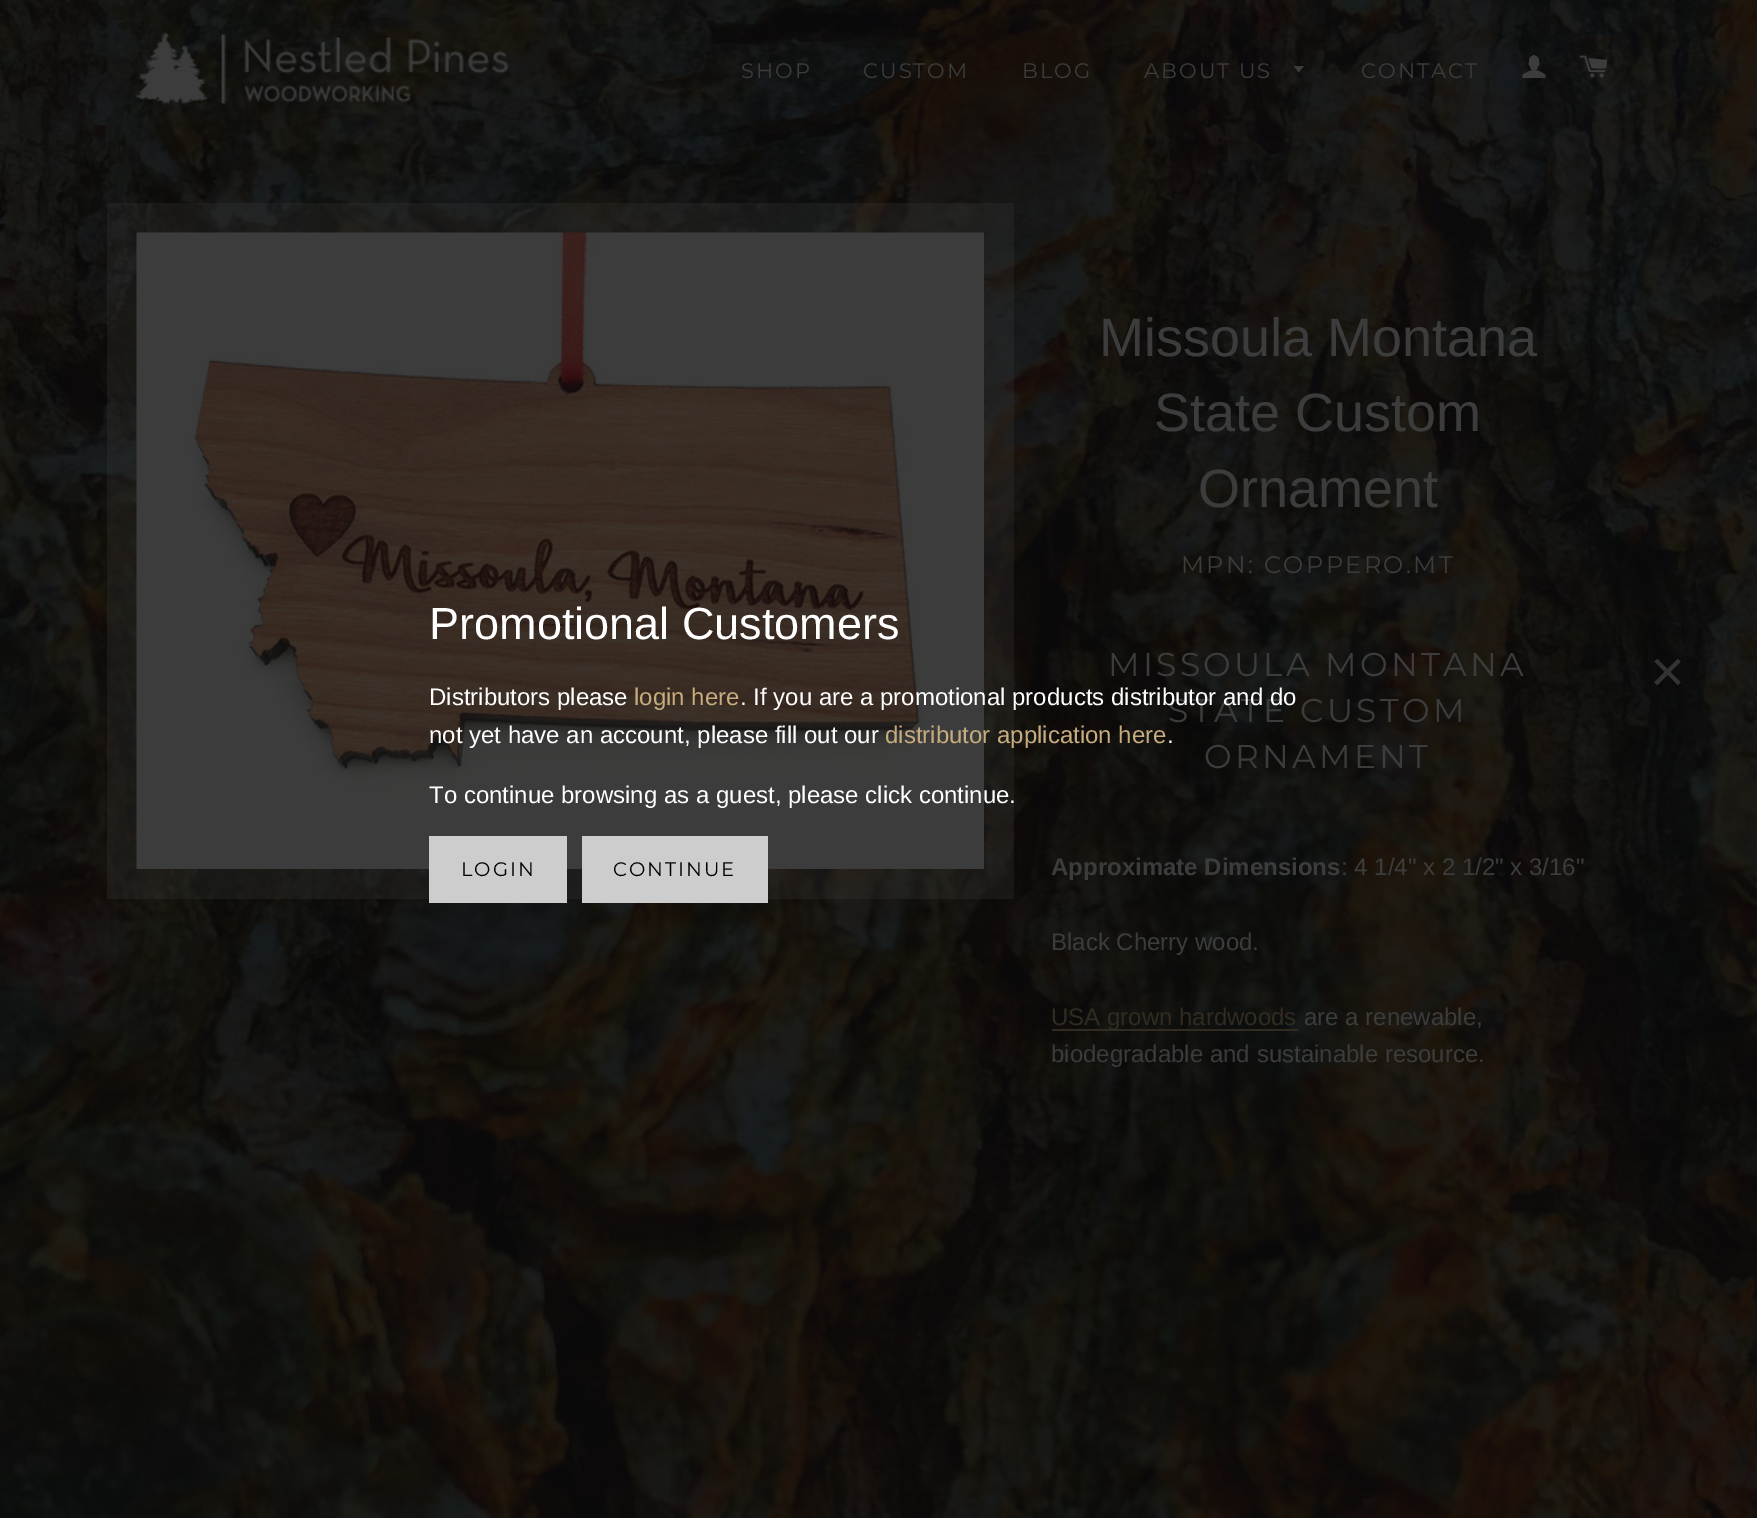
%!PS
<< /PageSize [1757 1518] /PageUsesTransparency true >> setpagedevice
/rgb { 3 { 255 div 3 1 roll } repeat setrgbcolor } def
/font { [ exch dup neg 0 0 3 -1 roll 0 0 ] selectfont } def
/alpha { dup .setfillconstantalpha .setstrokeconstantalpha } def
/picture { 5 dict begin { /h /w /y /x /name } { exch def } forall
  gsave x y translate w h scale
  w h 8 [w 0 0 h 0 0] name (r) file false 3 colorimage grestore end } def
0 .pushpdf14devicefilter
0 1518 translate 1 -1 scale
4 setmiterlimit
255 255 255 rgb
0 0 1757 1518 rectfill
(img/1.rgb) 0 0 1757 1518 picture
(img/2.rgb) 136 31 373 73 picture
60 60 60 rgb
1294 66 moveto 1298.5 72.5 lineto 1304 66 lineto closepath fill
(img/3.rgb) 1522 54 24 25 picture
(img/4.rgb) 1579 55 29 23 picture
0.26 alpha
58 58 58 rgb
107 203 907 696 rectfill
1 alpha
137 868 847 1 rectfill
(img/5.rgb) 136 232 848 637 picture
[
  [1052 1029 246 2 49 43 34]
  [429 836 138 67 205 205 205]
  [582 836 186 67 205 205 205]
] { aload pop rgb rectfill } forall
/Montserrat-Thin 21 font
60 60 60 rgb
741 78 moveto 2 0 (SHOP) ashow
863 78 moveto 2 0 (CUSTOM) ashow
1022 78 moveto 2 0 (BLOG) ashow
1144 78 moveto 2 0 (ABOUT US) ashow
1361 78 moveto 2 0 (CONTACT) ashow
/LiberationSans-Regular 54 font
[
  [(Missoula Montana) 1099 356]
  [(State Custom) 1154 431]
  [(Ornament) 1198 507]
] { aload pop moveto show } forall
/Montserrat-Thin 24 font
1181 573 moveto 2.4 0 (MPN: COPPERO.MT) ashow
/Montserrat-Thin 33 font
1108 676 moveto 3.25 0 (MISSOULA MONTANA) ashow
1168 722 moveto 3.25 0 (STATE CUSTOM) ashow
1204 768 moveto 3.25 0 (ORNAMENT) ashow
/LiberationSans-Bold 24 font
1051 875 moveto (Approximate Dimensions) show
/LiberationSans-Regular 24 font
1341 875 moveto (: 4 1/4" x 2 1/2" x 3/16") show
1051 950 moveto (Black Cherry wood.) show
49 43 34 rgb
1051 1025 moveto (USA grown hardwoods) show
60 60 60 rgb
1304 1025 moveto (are a renewable,) show
1051 1062 moveto (biodegradable and sustainable resource.) show
/LiberationSans-Regular 45 font
255 255 255 rgb
429 639 moveto (Promotional Customers) show
/LiberationSans-Regular 60 font
51 51 51 rgb
1650 692 moveto (×) show
/LiberationSans-Regular 24 font
255 255 255 rgb
429 705 moveto (Distributors please) show
199 172 127 rgb
634 705 moveto (login here) show
255 255 255 rgb
740 705 moveto (. If you are a promotional products distributor and do) show
429 743 moveto (not yet have an account, please fill out our) show
199 172 127 rgb
885 743 moveto (distributor application here) show
255 255 255 rgb
1167 743 moveto (.) show
429 803 moveto (To continue browsing as a guest, please click continue.) show
/Montserrat-Thin 19.5 font
0 0 0 rgb
461 876 moveto 2 0 (LOGIN) ashow
613 876 moveto 2 0 (CONTINUE) ashow
.poppdf14devicefilter showpage
